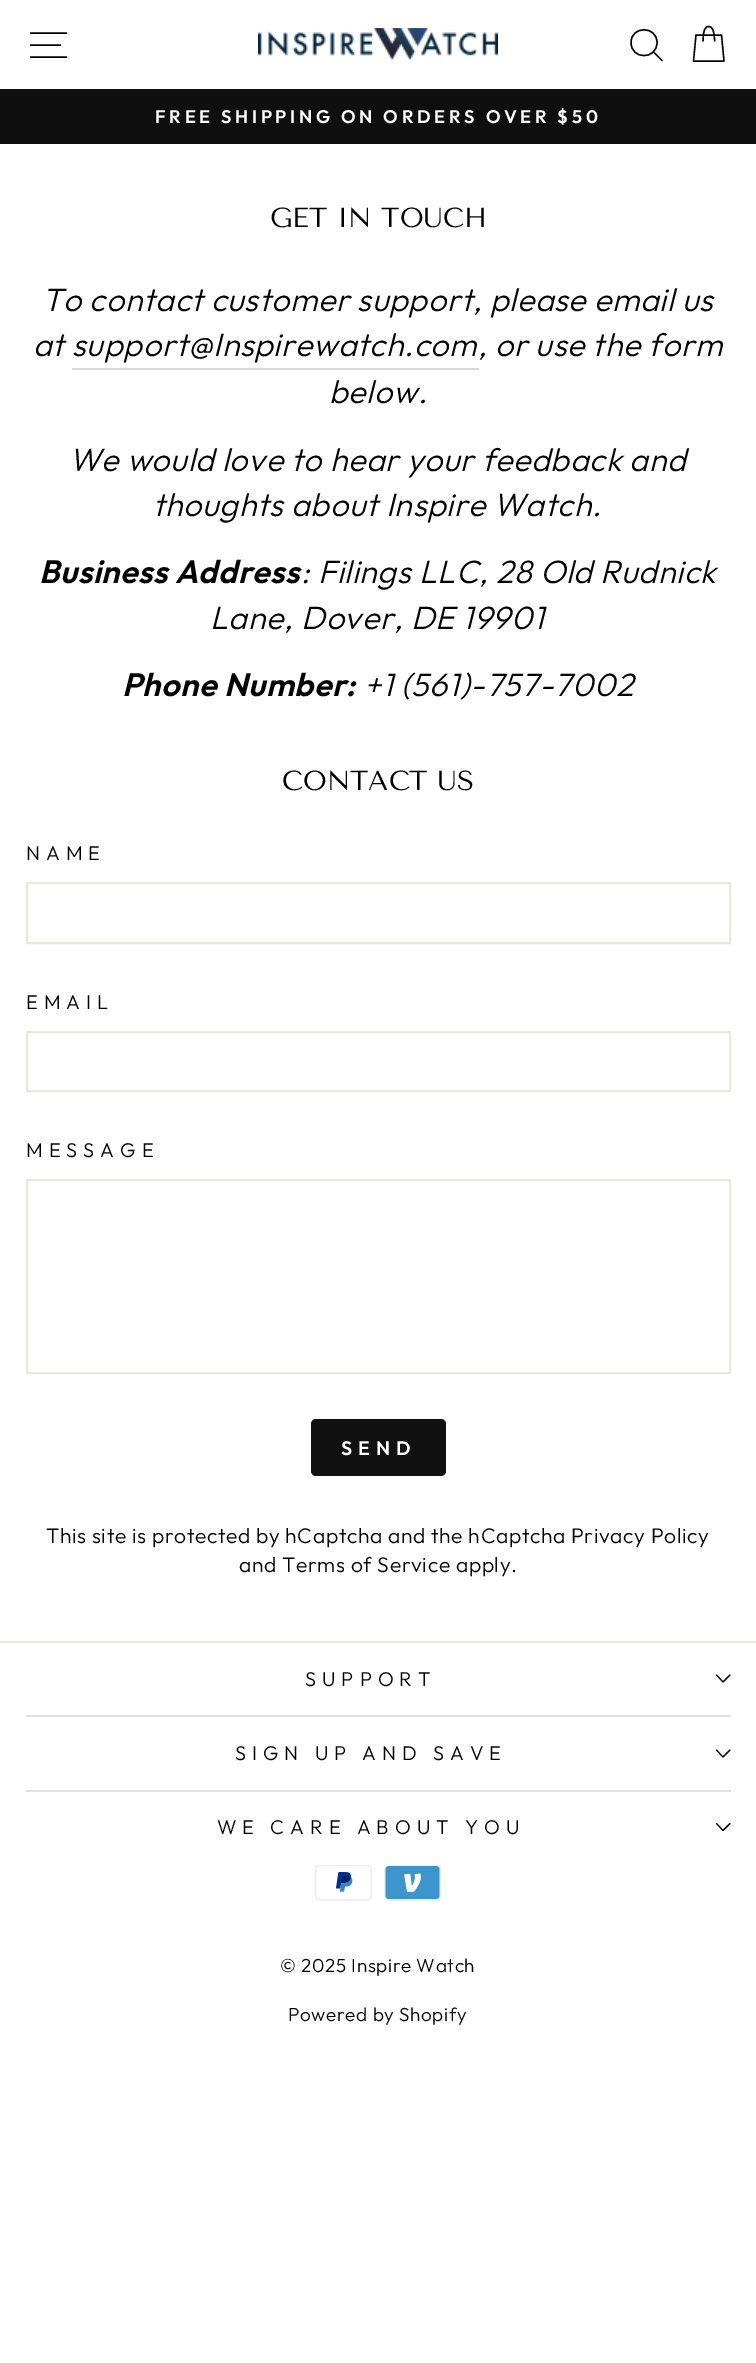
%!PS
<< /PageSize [756 2363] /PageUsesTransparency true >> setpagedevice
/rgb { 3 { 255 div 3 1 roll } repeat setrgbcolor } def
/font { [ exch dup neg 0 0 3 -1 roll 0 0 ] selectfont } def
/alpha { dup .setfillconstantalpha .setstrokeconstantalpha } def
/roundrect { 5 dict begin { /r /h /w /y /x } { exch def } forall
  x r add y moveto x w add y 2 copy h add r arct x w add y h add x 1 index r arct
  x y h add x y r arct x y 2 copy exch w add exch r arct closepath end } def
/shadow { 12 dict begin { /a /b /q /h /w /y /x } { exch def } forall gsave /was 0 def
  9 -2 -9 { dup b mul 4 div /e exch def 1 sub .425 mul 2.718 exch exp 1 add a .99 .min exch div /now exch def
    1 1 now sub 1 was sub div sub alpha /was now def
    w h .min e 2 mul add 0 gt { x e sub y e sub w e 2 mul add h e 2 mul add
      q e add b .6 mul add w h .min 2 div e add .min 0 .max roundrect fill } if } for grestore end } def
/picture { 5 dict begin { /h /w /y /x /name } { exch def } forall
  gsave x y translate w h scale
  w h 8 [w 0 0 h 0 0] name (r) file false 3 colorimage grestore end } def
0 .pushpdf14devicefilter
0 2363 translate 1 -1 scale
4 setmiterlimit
255 255 255 rgb
0 0 756 2363 rectfill
15 15 15 rgb
0 89 756 55 rectfill
0 0 0 rgb
0 0 756 89 0 1 0.2 shadow
255 255 255 rgb
0 0 756 89 rectfill
0 0 0 rgb
1.4 setlinewidth
1 setlinecap
1 setlinejoin
30.5 33 moveto 66.5 33 lineto 30.5 45 moveto 60.5 45 lineto 30.5 57 moveto 66.5 57 lineto stroke
(img/1.rgb) 258 28 240 32 picture
657 42.5 moveto 657 60 631 60 631 42.5 curveto 631 25.5 657 25.5 657 42.5 curveto closepath 662 60.5 moveto 653.5 52 lineto stroke
703 41 moveto 703 29.5 705.5 26.5 708.5 26.5 curveto 712 26.5 714.5 29.5 714.5 41 curveto 696 35 moveto 721.5 35 lineto 724 61 lineto 693.5 61 lineto closepath stroke
217 217 217 rgb
72 368 407 2 rectfill
232 232 225 rgb
2 setlinewidth
0 setlinecap
0 setlinejoin
27 883 703 60 rectstroke
27 1032 703 59 rectstroke
27 1180 703 193 rectstroke
17 17 17 rgb
311 1419 135 57 5 roundrect fill
232 232 225 rgb
0 1641 756 2 rectfill
0 0 0 rgb
1.1 setlinewidth
1 setlinecap
1 setlinejoin
716.5 1675 moveto 723 1682 lineto 730 1675 lineto stroke
224 224 224 rgb
26 1715 705 2 rectfill
0 0 0 rgb
716.5 1750 moveto 723 1757 lineto 730 1750 lineto stroke
224 224 224 rgb
26 1790 705 2 rectfill
0 0 0 rgb
716.5 1823.5 moveto 723 1830.5 lineto 730 1823.5 lineto stroke
(img/2.rgb) 315 1865 57 36 picture
(img/3.rgb) 384 1865 57 36 picture
/Outfit-SemiBold 18.25 font
255 255 255 rgb
155 123 moveto 3.65 0 (FREE SHIPPING ON ORDERS OVER $50) ashow
/TenorSans-Regular 27.5 font
0 0 0 rgb
270 227 moveto (GET IN TOUCH) show
/Outfit-LightItalic 32.25 font
42 311 moveto 0.62 0 (To contact customer support, please email us) ashow
33 356 moveto 0.62 0 (at support@Inspirewatch.com) ashow
478 356 moveto 0.62 0 (, or use the form) ashow
329 403 moveto 0.62 0 (below.) ashow
69 471 moveto 0.62 0 (We would love to hear your feedback and) ashow
153 516 moveto 0.62 0 (thoughts about Inspire Watch.) ashow
/Outfit-SemiBoldItalic 32.25 font
39 583 moveto 0.62 0 (Business Address) ashow
/Outfit-LightItalic 32.25 font
301 583 moveto 0.62 0 (: Filings LLC, 28 Old Rudnick) ashow
210 629 moveto 0.62 0 (Lane, Dover, DE 19901) ashow
/Outfit-SemiBoldItalic 32.25 font
122 696 moveto 0.62 0 (Phone Number:) ashow
/Outfit-LightItalic 32.25 font
364 696 moveto 0.62 0 (+1 \(561\)-757-7002) ashow
/TenorSans-Regular 27.5 font
282 790 moveto (CONTACT US) show
/Outfit-Light 19.9 font
26 860 moveto 6 0 (NAME) ashow
26 1009 moveto 6 0 (EMAIL) ashow
26 1157 moveto 6 0 (MESSAGE) ashow
/Outfit-SemiBold 19.5 font
255 255 255 rgb
341 1455 moveto 6 0 (SEND) ashow
/Outfit-Light 21.1 font
0 0 0 rgb
46 1543 moveto 0.62 0 (This site is protected by hCaptcha and the hCaptcha Privacy Policy) ashow
239 1572 moveto 0.62 0 (and Terms of Service apply.) ashow
/Outfit-Light 19.9 font
305 1686 moveto 6 0 (SUPPORT) ashow
235 1760 moveto 6 0 (SIGN UP AND SAVE) ashow
217 1834 moveto 6 0 (WE CARE ABOUT YOU) ashow
/Outfit-Light 18.9 font
280 1972 moveto 0.62 0 (© 2025 Inspire Watch) ashow
288 2021 moveto 0.62 0 (Powered by Shopify) ashow
.poppdf14devicefilter showpage
